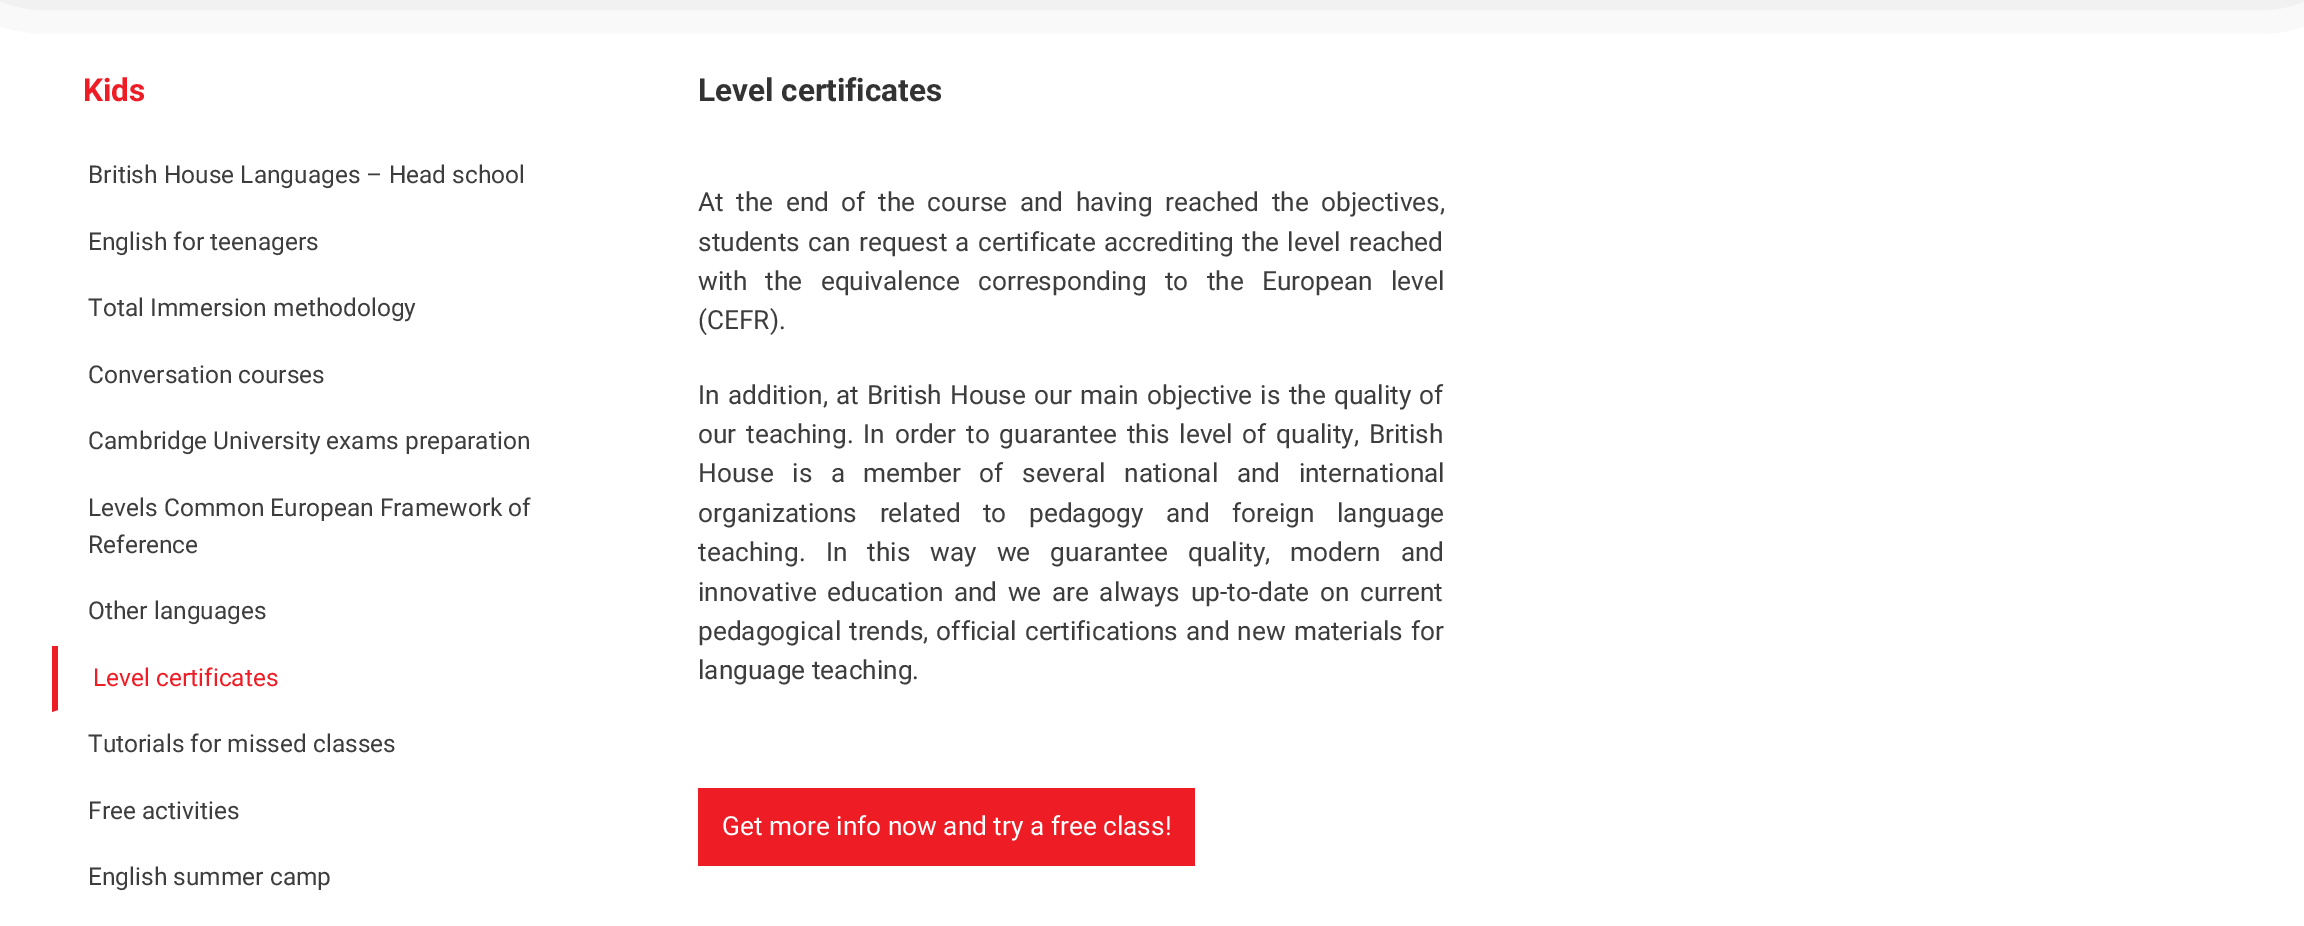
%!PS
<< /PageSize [2304 926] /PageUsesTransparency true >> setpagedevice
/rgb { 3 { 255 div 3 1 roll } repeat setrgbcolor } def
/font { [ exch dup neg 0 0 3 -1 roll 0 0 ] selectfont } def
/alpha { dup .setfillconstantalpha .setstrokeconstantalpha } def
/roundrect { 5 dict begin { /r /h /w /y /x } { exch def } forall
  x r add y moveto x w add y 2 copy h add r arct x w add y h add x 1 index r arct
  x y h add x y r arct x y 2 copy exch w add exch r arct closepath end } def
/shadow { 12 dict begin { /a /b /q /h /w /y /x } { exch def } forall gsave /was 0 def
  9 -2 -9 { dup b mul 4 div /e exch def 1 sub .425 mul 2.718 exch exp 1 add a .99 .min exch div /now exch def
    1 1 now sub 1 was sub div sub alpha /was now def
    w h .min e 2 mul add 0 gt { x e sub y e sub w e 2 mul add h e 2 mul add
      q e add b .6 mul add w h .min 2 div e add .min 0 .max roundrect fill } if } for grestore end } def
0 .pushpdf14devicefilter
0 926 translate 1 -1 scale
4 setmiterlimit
255 255 255 rgb
0 0 2304 926 rectfill
0 0 0 rgb
16 -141 2273 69 0 47 0.75 shadow
238 28 37 rgb
52 712 moveto 52 646 lineto 58 646 lineto 58 710 lineto closepath fill
698 788 497 78 rectfill
/Roboto-Bold 31.5 font
83 101 moveto (Kids) show
/Roboto-Regular 24.5 font
61 61 61 rgb
[
  [(British House Languages – Head school) 88 183]
  [(English for teenagers) 88 250]
  [(Total Immersion methodology) 88 316]
  [(Conversation courses) 88 383]
  [(Cambridge University exams preparation) 88 449]
  [(Levels Common European Framework of) 88 516]
  [(Reference) 88 553]
  [(Other languages) 88 619]
] { aload pop moveto show } forall
238 28 37 rgb
93 686 moveto (Level certificates) show
61 61 61 rgb
[
  [(Tutorials for missed classes) 88 752]
  [(Free activities) 88 819]
  [(English summer camp) 88 885]
] { aload pop moveto show } forall
/Roboto-Bold 31.5 font
51 51 51 rgb
698 101 moveto (Level certificates) show
/Roboto-Regular 26.25 font
61 61 61 rgb
698 211 moveto 6 0 32 (At the end of the course and having reached the objectives,) widthshow
698 251 moveto 1.75 0 32 (students can request a certificate accrediting the level reached) widthshow
698 290 moveto 11.75 0 32 (with the equivalence corresponding to the European level) widthshow
698 329 moveto (\(CEFR\).) show
698 404 moveto 1.75 0 32 (In addition, at British House our main objective is the quality of) widthshow
698 443 moveto 3.25 0 32 (our teaching. In order to guarantee this level of quality, British) widthshow
698 482 moveto 12 0 32 (House is a member of several national and international) widthshow
698 522 moveto 16 0 32 (organizations related to pedagogy and foreign language) widthshow
698 561 moveto 13.5 0 32 (teaching. In this way we guarantee quality, modern and) widthshow
698 601 moveto 4 0 32 (innovative education and we are always up-to-date on current) widthshow
698 640 moveto (pedagogical) show
849 640 moveto 1.5 0 32 (trends, official certifications and new materials for) widthshow
698 679 moveto (language teaching.) show
255 255 255 rgb
722 835 moveto (Get more info now and try a free class!) show
.poppdf14devicefilter showpage
